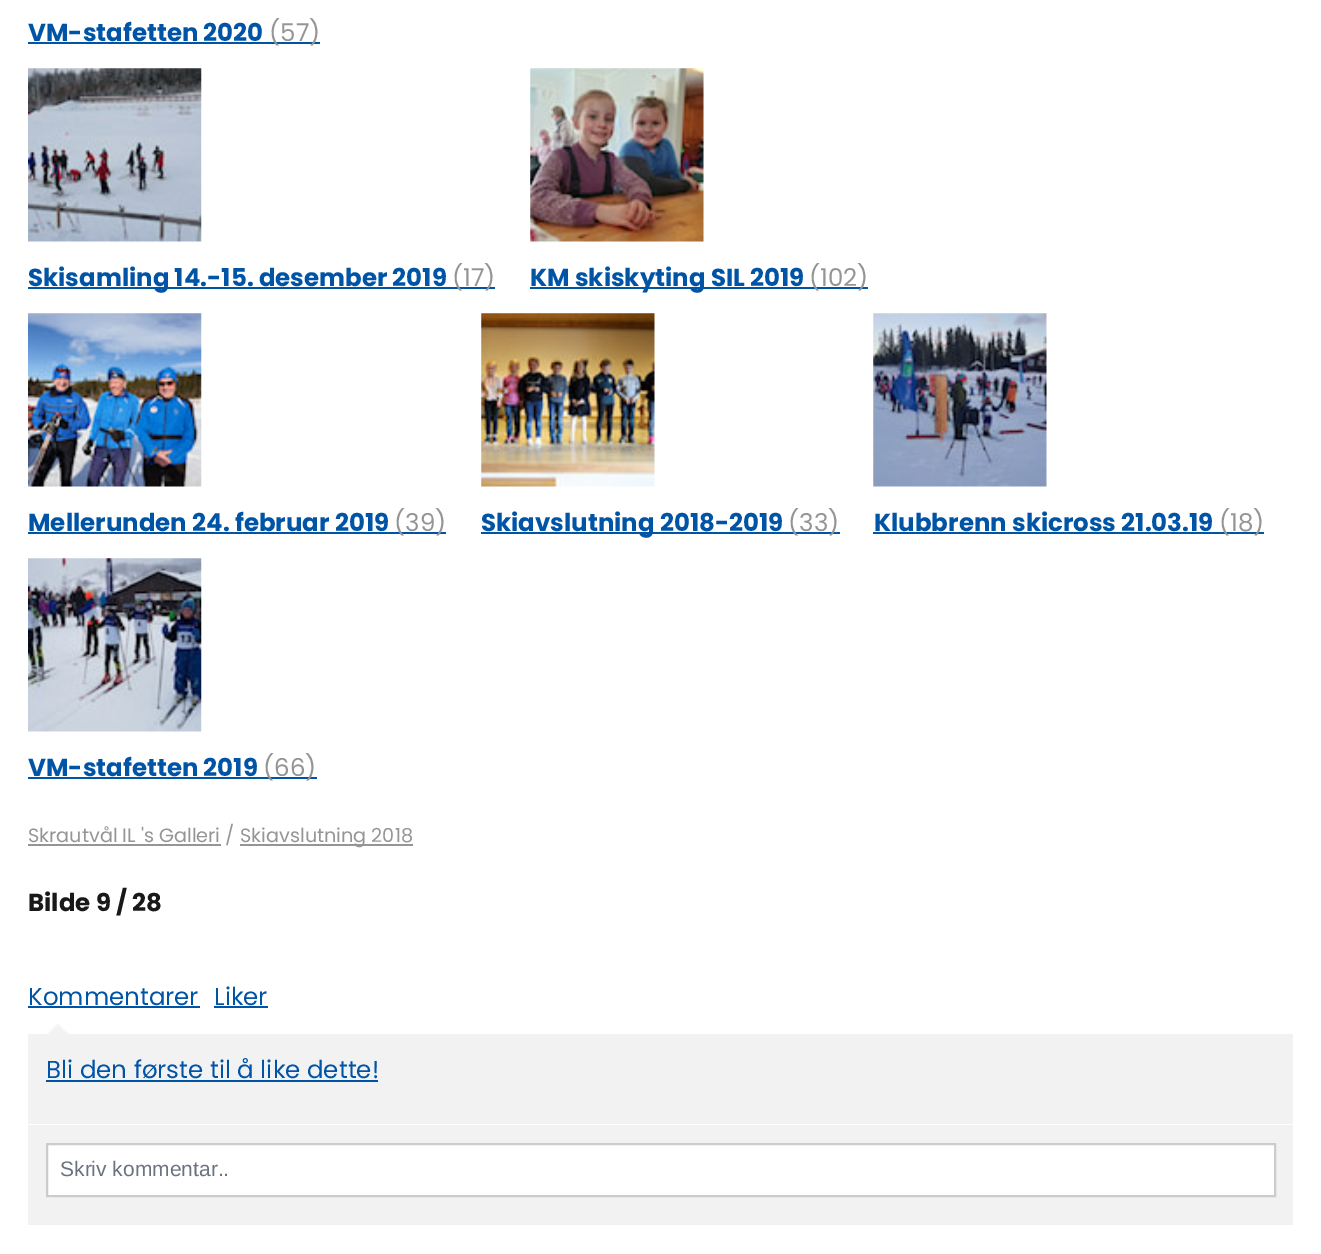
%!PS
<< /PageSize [1321 1254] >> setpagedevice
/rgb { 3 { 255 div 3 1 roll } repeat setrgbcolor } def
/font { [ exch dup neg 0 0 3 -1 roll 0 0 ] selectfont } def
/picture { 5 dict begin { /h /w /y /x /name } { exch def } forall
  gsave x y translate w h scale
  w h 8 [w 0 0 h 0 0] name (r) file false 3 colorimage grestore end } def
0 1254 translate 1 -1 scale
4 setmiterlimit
255 255 255 rgb
0 0 1321 1254 rectfill
0 84 166 rgb
28 42 292 2 rectfill
(img/1.rgb) 28 68 174 174 picture
28 287 467 2 rectfill
(img/2.rgb) 530 68 174 174 picture
530 287 338 2 rectfill
(img/3.rgb) 28 313 174 174 picture
28 532 418 2 rectfill
(img/4.rgb) 481 313 174 174 picture
481 532 359 2 rectfill
(img/5.rgb) 873 313 174 174 picture
873 532 391 2 rectfill
(img/6.rgb) 28 558 174 174 picture
[
  [28 777 289 2 0 84 166]
  [28 844 193 2 149 149 149]
  [240 844 173 2 149 149 149]
  [28 1006 172 2 0 84 166]
  [214 1006 54 2 0 84 166]
] { aload pop rgb rectfill } forall
(img/7.rgb) 46 1024 24 10 picture
[
  [28 1034 1265 90 242 242 242]
  [46 1080 332 2 0 84 166]
  [28 1125 1265 100 242 242 242]
] { aload pop rgb rectfill } forall
255 255 255 rgb
47 1144 moveto 1275 1144 lineto 1275 1196 lineto 47 1196 lineto closepath gsave fill grestore
204 204 204 rgb
2 setlinewidth
stroke
/Poppins-Bold 24.5 font
0 84 166 rgb
28 41 moveto (VM-stafetten 2020) show
/Poppins-Regular 24.5 font
149 149 149 rgb
269 41 moveto (\(57\)) show
/Poppins-Bold 24.5 font
0 84 166 rgb
28 286 moveto (Skisamling 14.-15. desember 2019) show
/Poppins-Regular 24.5 font
149 149 149 rgb
452 286 moveto (\(17\)) show
/Poppins-Bold 24.5 font
0 84 166 rgb
530 286 moveto (KM skiskyting SIL 2019) show
/Poppins-Regular 24.5 font
149 149 149 rgb
809 286 moveto (\(102\)) show
/Poppins-Bold 24.5 font
0 84 166 rgb
28 531 moveto (Mellerunden 24. februar 2019) show
/Poppins-Regular 24.5 font
149 149 149 rgb
394 531 moveto (\(39\)) show
/Poppins-Bold 24.5 font
0 84 166 rgb
481 531 moveto (Skiavslutning 2018-2019) show
/Poppins-Regular 24.5 font
149 149 149 rgb
788 531 moveto (\(33\)) show
/Poppins-Bold 24.5 font
0 84 166 rgb
874 531 moveto (Klubbrenn skicross 21.03.19) show
/Poppins-Regular 24.5 font
149 149 149 rgb
1219 531 moveto (\(18\)) show
/Poppins-Bold 24.5 font
0 84 166 rgb
28 776 moveto (VM-stafetten 2019) show
/Poppins-Regular 24.5 font
149 149 149 rgb
263 776 moveto (\(66\)) show
/Poppins-Regular 19.25 font
28 842 moveto (Skrautvål IL 's Galleri /) show
240 842 moveto (Skiavslutning 2018) show
/Poppins-Bold 24.5 font
25 25 25 rgb
28 911 moveto (Bilde 9 / 28) show
/Poppins-Regular 24.5 font
0 84 166 rgb
[
  [(Kommentarer) 28 1005]
  [(Liker) 214 1005]
  [(Bli den første til å like dette!) 46 1078]
] { aload pop moveto show } forall
/LiberationSans-Regular 21 font
107 114 128 rgb
60 1176 moveto (Skriv kommentar..) show
showpage
